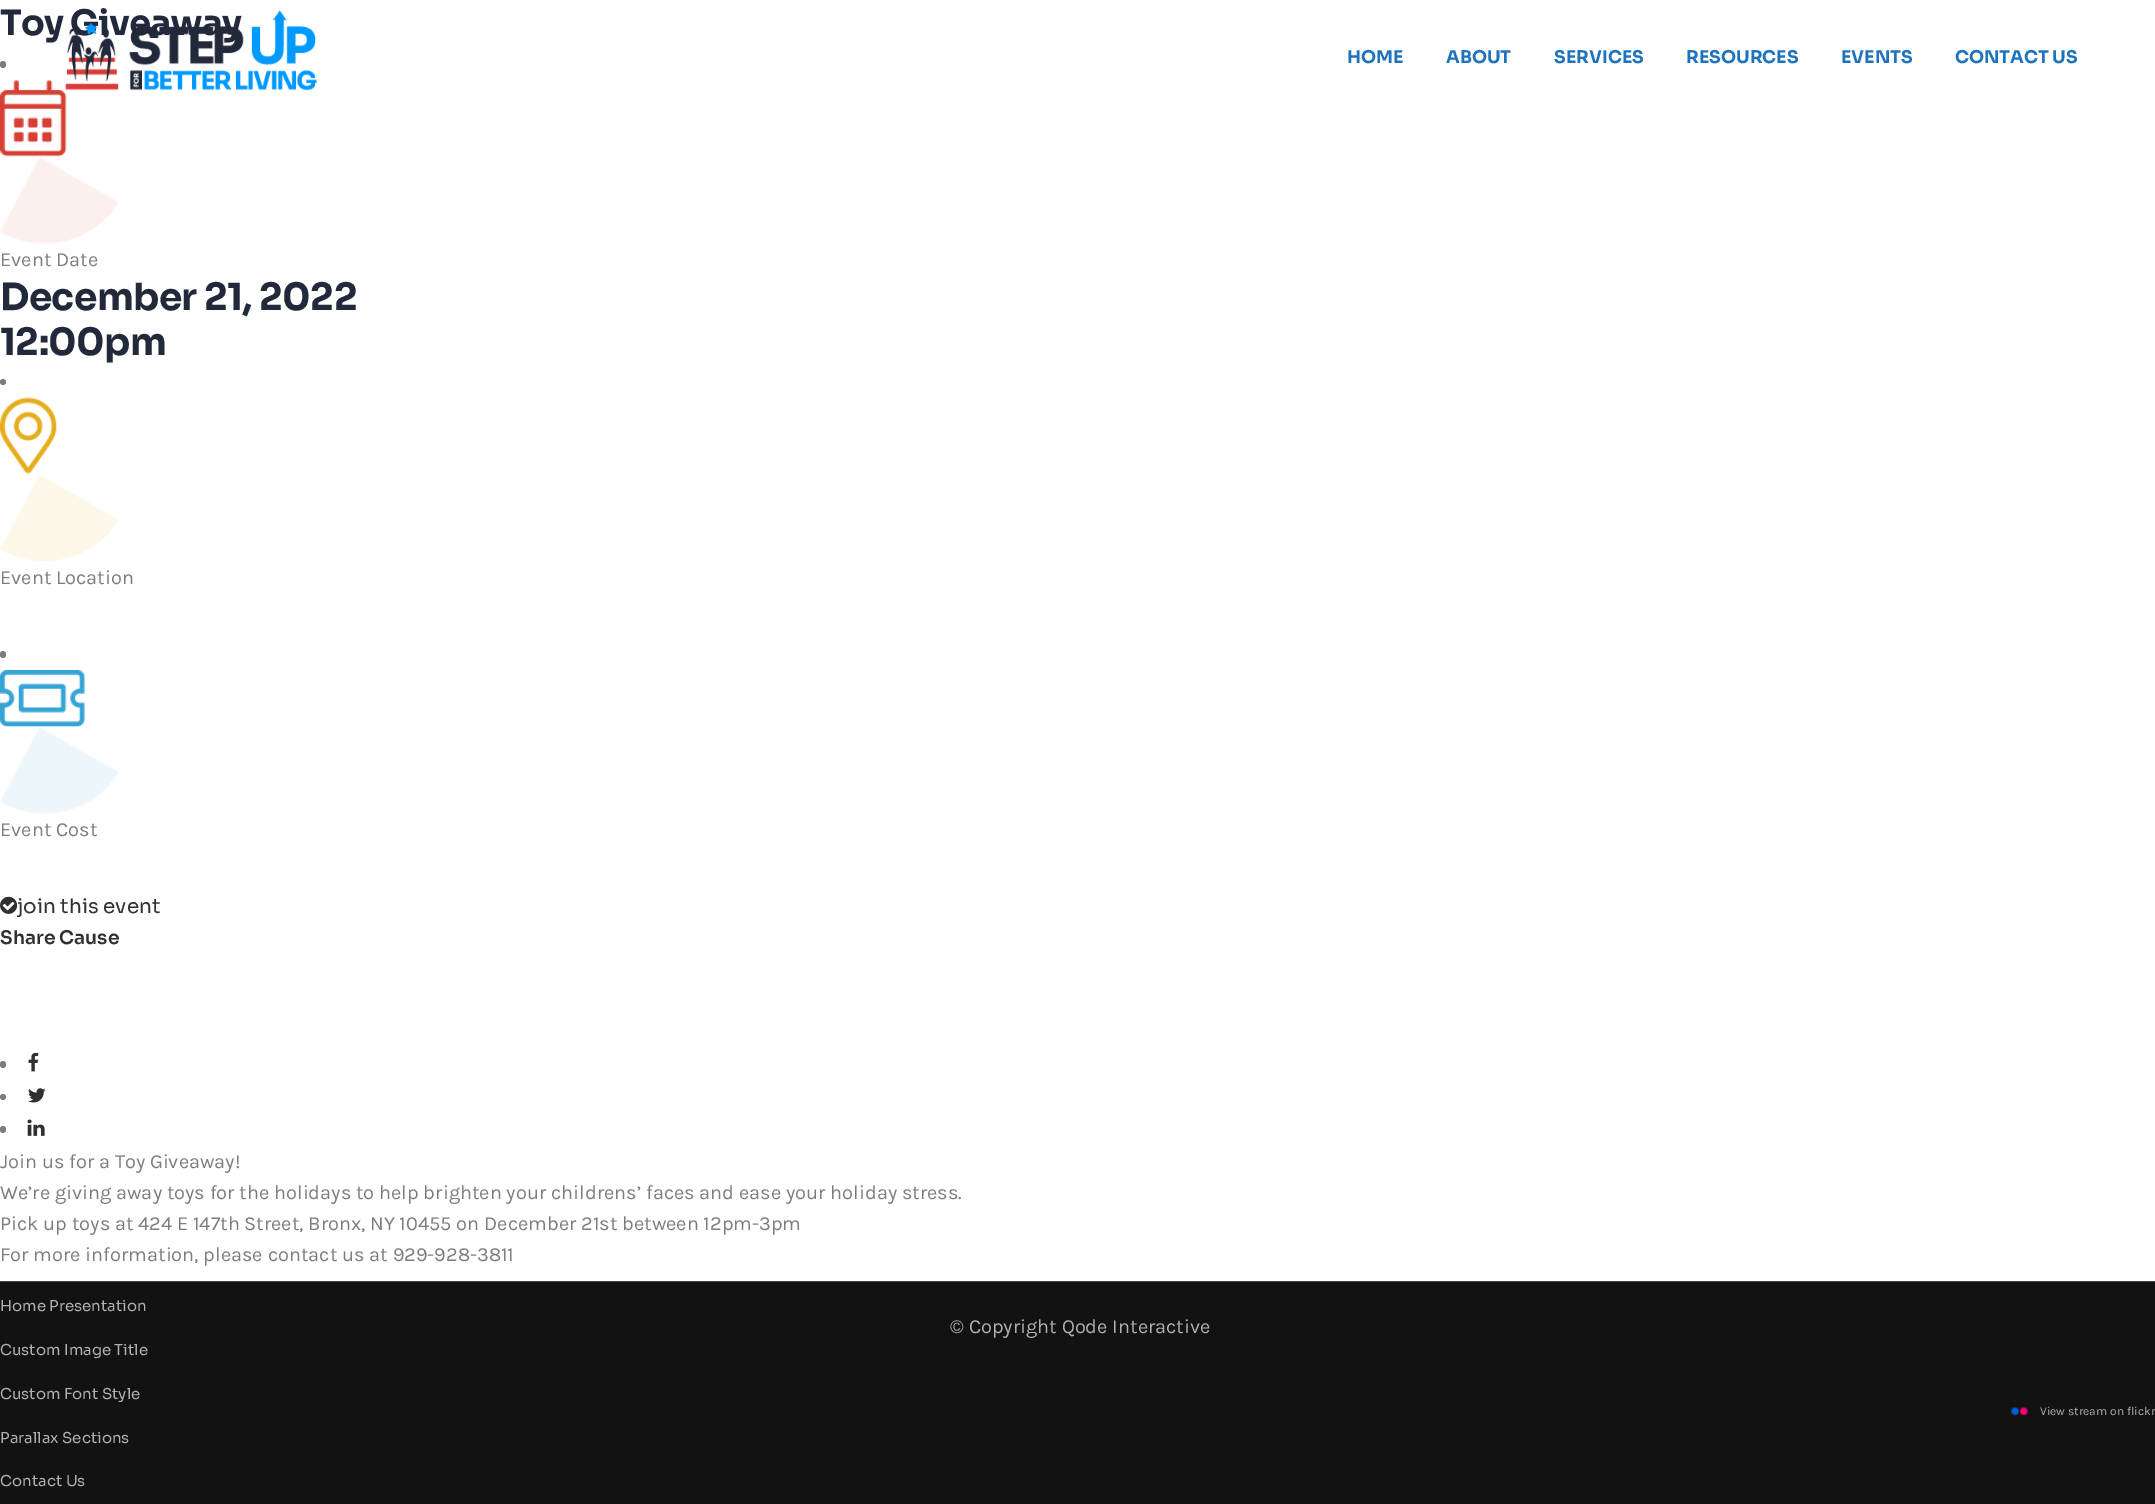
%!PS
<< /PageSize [2155 1504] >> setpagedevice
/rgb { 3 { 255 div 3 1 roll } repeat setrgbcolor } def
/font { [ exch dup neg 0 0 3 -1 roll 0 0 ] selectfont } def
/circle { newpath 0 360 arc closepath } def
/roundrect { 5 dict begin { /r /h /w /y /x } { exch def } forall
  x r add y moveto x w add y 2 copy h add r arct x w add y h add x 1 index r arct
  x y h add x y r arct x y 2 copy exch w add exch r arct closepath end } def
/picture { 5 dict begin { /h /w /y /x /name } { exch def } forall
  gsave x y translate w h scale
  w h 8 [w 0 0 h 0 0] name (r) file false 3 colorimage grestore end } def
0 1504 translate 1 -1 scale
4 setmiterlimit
255 255 255 rgb
0 0 2155 1504 rectfill
125 125 125 rgb
0 61 6 7 3 roundrect fill
(img/1.rgb) 0 80 67 77 picture
(img/2.rgb) 0 157 119 87 picture
3 382 3 circle fill
(img/3.rgb) 0 397 57 77 picture
(img/4.rgb) 0 475 119 86 picture
0 651 6 7 3 roundrect fill
(img/5.rgb) 0 670 85 57 picture
(img/6.rgb) 0 727 119 87 picture
(img/7.rgb) 0 896 18 18 picture
0 1061 6 7 3 roundrect fill
(img/8.rgb) 28 1052 11 20 picture
3 1097 3 circle fill
(img/9.rgb) 28 1088 18 15 picture
0 1126 6 7 3 roundrect fill
(img/10.rgb) 27 1119 18 17 picture
18 18 18 rgb
0 1282 2155 222 rectfill
63 63 63 rgb
0 1281 2155 1 rectfill
(img/12.rgb) 2011 1407 17 9 picture
/Sora-Bold 35 font
33 41 58 rgb
0 35 moveto -0.75 0 (Toy Giveaway) ashow
/Karla-Regular 20 font
125 125 125 rgb
0 266 moveto (Event Date) show
/Sora-Bold 37.5 font
33 41 58 rgb
0 310 moveto -0.6 0 (December 21, 2022) ashow
0 355 moveto -0.6 0 (12:00pm) ashow
/Karla-Regular 20 font
125 125 125 rgb
0 584 moveto (Event Location) show
0 836 moveto (Event Cost) show
/Sora-Regular 20 font
48 48 48 rgb
17 913 moveto (join this event) show
/Sora-SemiBold 18.75 font
0 944 moveto (Share Cause) show
/Karla-Regular 20 font
125 125 125 rgb
[
  [(Join us for a Toy Giveaway!) 0 1168]
  [(We’re giving away toys for the holidays to help brighten your childrens’ faces and ease your holiday stress.) 0 1199]
  [(Pick up toys at 424 E 147th Street, Bronx, NY 10455 on December 21st between 12pm-3pm) 0 1230]
  [(For more information, please contact us at 929-928-3811) 0 1261]
] { aload pop moveto show } forall
(img/11.rgb) 65 10 252 81 picture
/Sora-Bold 17.5 font
30 115 190 rgb
[
  [(HOME) 1347 63]
  [(ABOUT) 1446 63]
  [(SERVICES) 1554 63]
  [(RESOURCES) 1686 63]
  [(EVENTS) 1841 63]
  [(CONTACT US) 1955 63]
] { aload pop moveto show } forall
/Sora-Regular 15 font
176 176 176 rgb
[
  [(Home Presentation) 0 1311]
  [(Custom Image Title) 0 1355]
  [(Custom Font Style) 0 1399]
  [(Parallax Sections) 0 1443]
  [(Contact Us) 0 1486]
] { aload pop moveto show } forall
/Karla-Regular 20 font
950 1333 moveto (© Copyright Qode Interactive) show
/Karla-Regular 12 font
2040 1415 moveto (View stream on flickr) show
showpage
